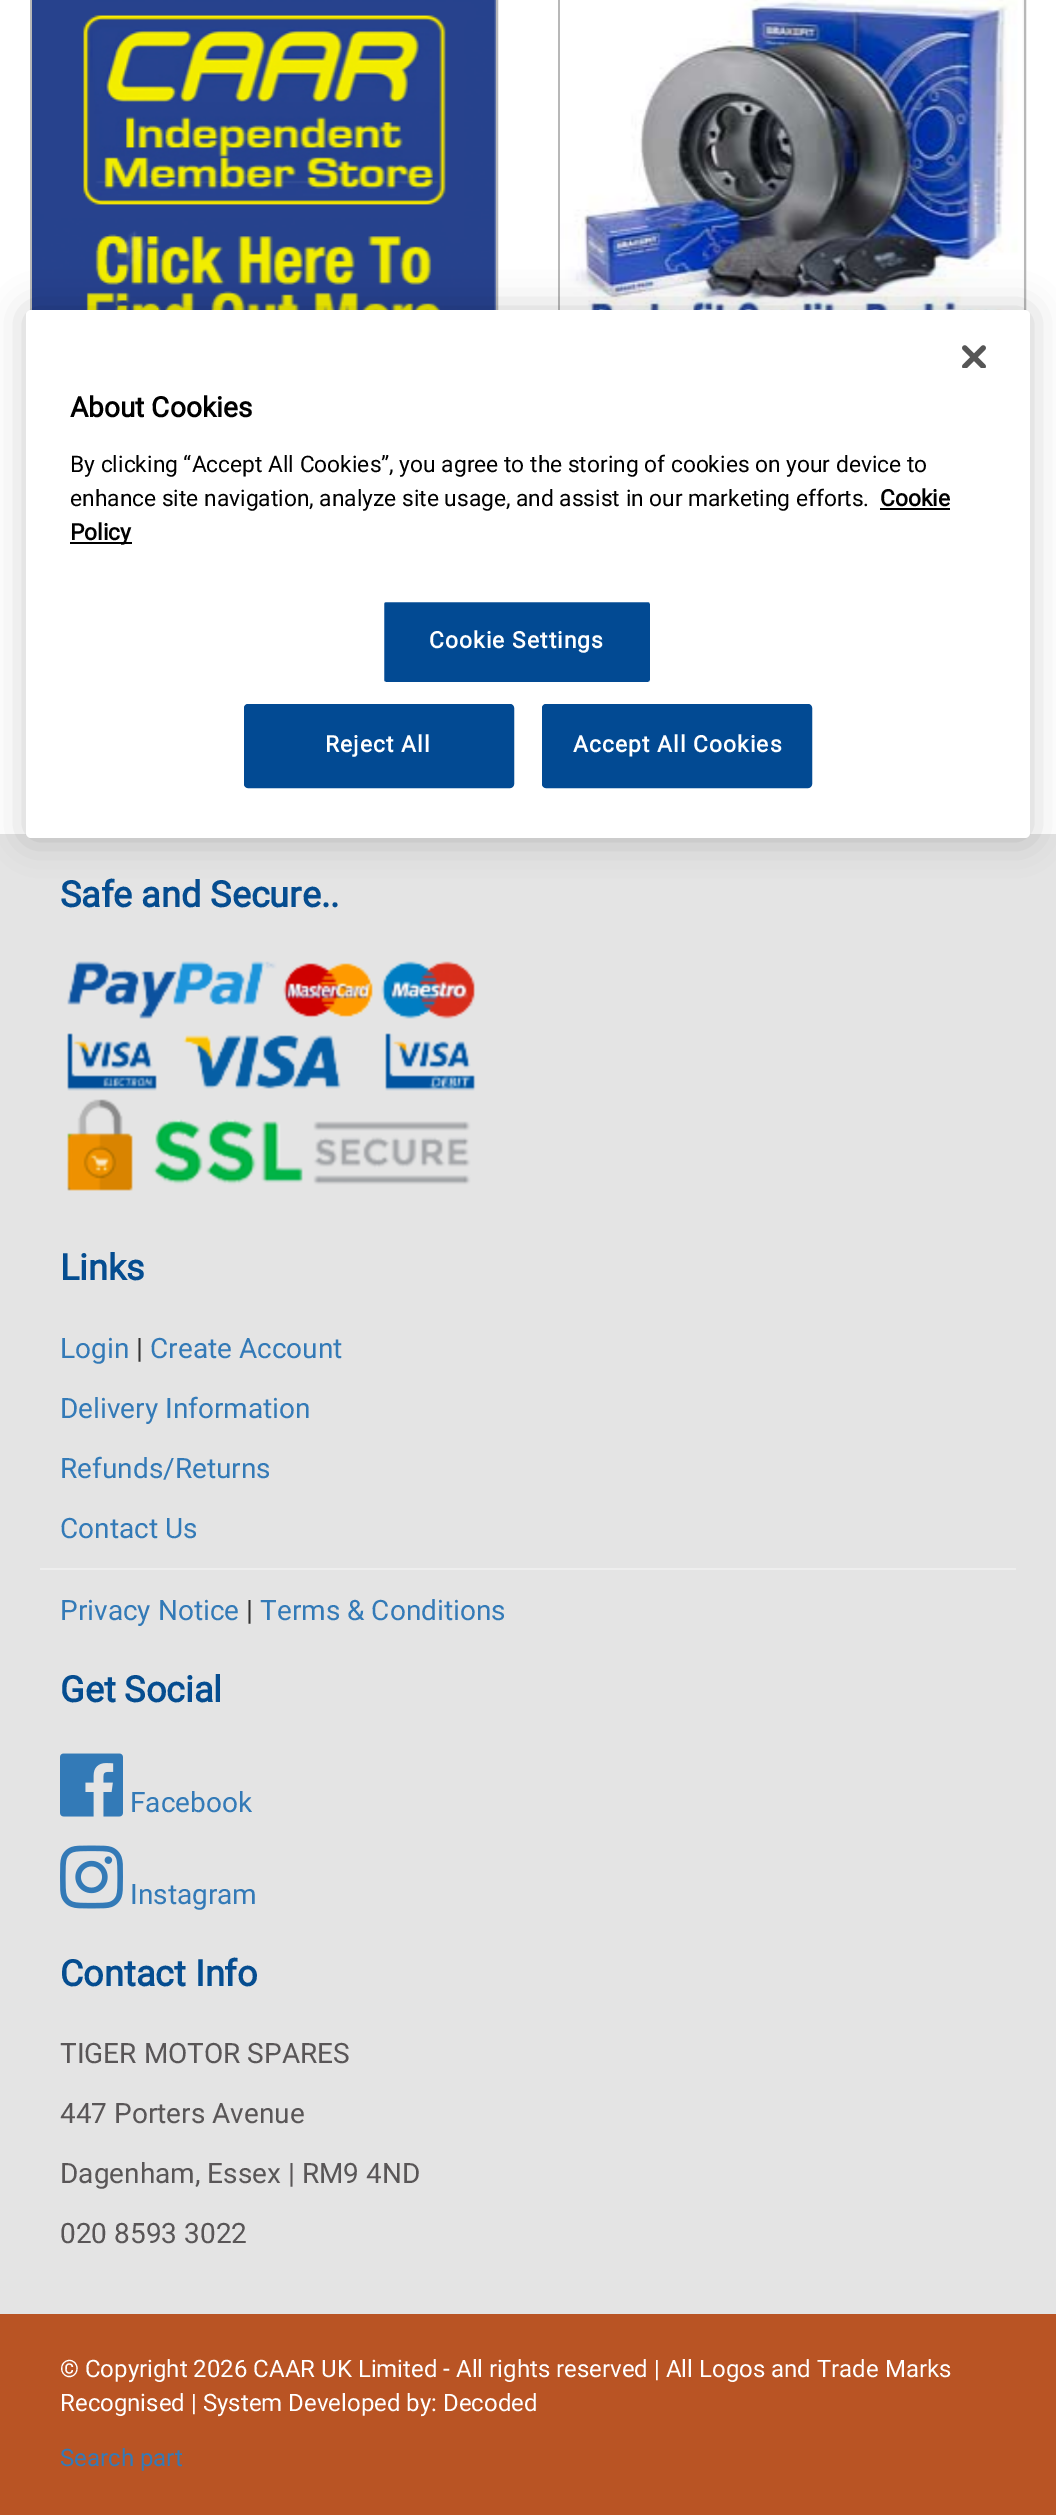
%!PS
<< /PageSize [1056 2515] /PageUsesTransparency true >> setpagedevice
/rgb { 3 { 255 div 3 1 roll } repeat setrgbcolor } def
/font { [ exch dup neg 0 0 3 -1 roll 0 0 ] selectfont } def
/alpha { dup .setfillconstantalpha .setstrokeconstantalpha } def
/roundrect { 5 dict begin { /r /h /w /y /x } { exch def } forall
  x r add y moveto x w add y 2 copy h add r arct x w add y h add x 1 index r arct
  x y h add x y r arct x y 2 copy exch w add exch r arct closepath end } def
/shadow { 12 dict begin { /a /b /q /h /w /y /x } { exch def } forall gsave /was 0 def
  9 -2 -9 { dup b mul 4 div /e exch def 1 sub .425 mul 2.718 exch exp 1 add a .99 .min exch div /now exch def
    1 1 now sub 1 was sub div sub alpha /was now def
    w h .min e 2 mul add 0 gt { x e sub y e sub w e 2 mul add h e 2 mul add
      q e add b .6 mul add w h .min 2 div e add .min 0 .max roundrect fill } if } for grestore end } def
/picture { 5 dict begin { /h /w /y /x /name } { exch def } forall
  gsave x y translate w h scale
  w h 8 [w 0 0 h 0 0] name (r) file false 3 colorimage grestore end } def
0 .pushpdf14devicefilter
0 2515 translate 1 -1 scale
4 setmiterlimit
255 255 255 rgb
0 0 1056 2515 rectfill
184 184 184 rgb
2 setlinewidth
31 -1 466 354 rectstroke
(img/2.rgb) 32 0 464 310 picture
559 -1 466 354 rectstroke
(img/3.rgb) 560 0 464 310 picture
228 228 228 rgb
0 834 1056 1480 rectfill
0 0 0 rgb
26 310 1004 528 5 18 0.2 shadow
255 255 255 rgb
26 310 1004 528 5 roundrect fill
(img/1.rgb) 962 345 24 23 picture
0 0 0 rgb
880 508 70 2 rectfill
70 542 62 2 rectfill
2 74 147 rgb
383 601 268 82 3 roundrect gsave fill grestore
255 255 255 rgb
stroke
2 74 147 rgb
245 705 268 82 3 roundrect gsave fill grestore
stroke
543 705 268 82 3 roundrect gsave fill grestore
stroke
(img/4.rgb) 67 961 409 230 picture
238 238 238 rgb
40 1568 976 2 rectfill
(img/5.rgb) 60 1753 63 64 picture
(img/6.rgb) 60 1845 63 64 picture
185 84 36 rgb
0 2314 1056 201 rectfill
/Roboto-Bold 28 font
0 0 0 rgb
70 417 moveto (About Cookies) show
/Roboto-Regular 22.75 font
70 472 moveto (By clicking “Accept All Cookies”, you agree to the storing of cookies on your device to) show
70 506 moveto (enhance site navigation, analyze site usage, and assist in our marketing efforts.) show
/Roboto-Bold 22.75 font
880 506 moveto (Cookie) show
70 540 moveto (Policy) show
255 255 255 rgb
429 648 moveto 1.1 0 (Cookie Settings) ashow
325 752 moveto 1.1 0 (Reject All) ashow
573 752 moveto 1.1 0 (Accept All Cookies) ashow
/Roboto-Bold 36 font
5 77 144 rgb
60 907 moveto (Safe and Secure..) show
60 1280 moveto (Links) show
/Roboto-Regular 28 font
51 122 183 rgb
60 1358 moveto (Login) show
51 51 51 rgb
136 1358 moveto (|) show
51 122 183 rgb
[
  [(Create Account) 150 1358]
  [(Delivery Information) 60 1418]
  [(Refunds/Returns) 60 1478]
  [(Contact Us) 60 1538]
  [(Privacy Notice) 60 1620]
] { aload pop moveto show } forall
51 51 51 rgb
246 1620 moveto (|) show
51 122 183 rgb
260 1620 moveto (Terms & Conditions) show
/Roboto-Bold 36 font
5 77 144 rgb
60 1702 moveto (Get Social) show
/Roboto-Regular 28 font
51 122 183 rgb
130 1812 moveto (Facebook) show
130 1904 moveto (Instagram) show
/Roboto-Bold 36 font
5 77 144 rgb
60 1986 moveto (Contact Info) show
/Roboto-Regular 28 font
89 86 87 rgb
[
  [(TIGER MOTOR SPARES) 60 2063]
  [(447 Porters Avenue) 60 2123]
  [(Dagenham, Essex | RM9 4ND) 60 2183]
  [(020 8593 3022) 60 2243]
] { aload pop moveto show } forall
/Roboto-Regular 24 font
255 255 255 rgb
60 2377 moveto (© Copyright 2026 CAAR UK Limited - All rights reserved | All Logos and Trade Marks) show
60 2411 moveto (Recognised | System Developed by: Decoded) show
51 122 183 rgb
60 2466 moveto (Search part) show
.poppdf14devicefilter showpage
